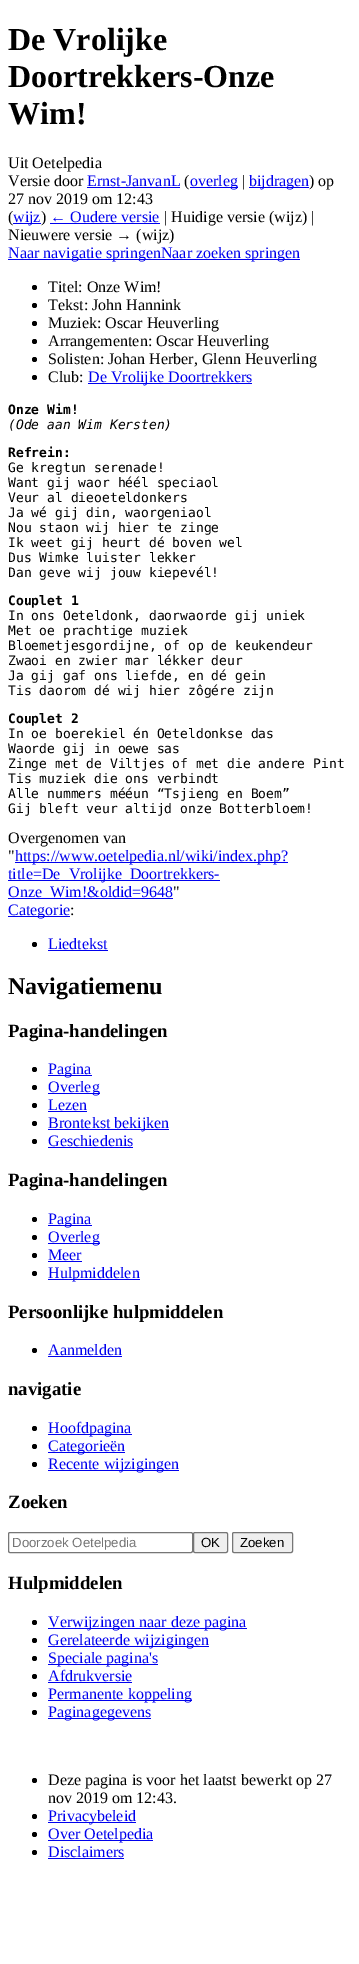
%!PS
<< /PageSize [359 1964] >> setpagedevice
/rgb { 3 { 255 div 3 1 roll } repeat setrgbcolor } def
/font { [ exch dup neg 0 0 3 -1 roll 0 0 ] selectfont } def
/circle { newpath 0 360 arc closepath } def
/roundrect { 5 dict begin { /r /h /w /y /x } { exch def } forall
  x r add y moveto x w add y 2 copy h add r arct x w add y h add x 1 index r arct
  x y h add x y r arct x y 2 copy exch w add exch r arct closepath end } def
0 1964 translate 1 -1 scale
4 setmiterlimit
255 255 255 rgb
0 0 359 1964 rectfill
[
  [87 187 93 1 0 0 238]
  [190 187 48 1 0 0 238]
  [249 187 60 1 0 0 238]
  [13 223 28 1 0 0 238]
  [50 223 110 1 0 0 238]
  [8 259 292 1 0 0 238]
] { aload pop rgb rectfill } forall
0 0 0 rgb
34.5 287.5 2.5 circle fill
34.5 305.5 2.5 circle fill
34.5 323.5 2.5 circle fill
34.5 341.5 2.5 circle fill
34.5 359.5 2.5 circle fill
34.5 377.5 2.5 circle fill
[
  [88 383 164 1 0 0 238]
  [15 862 273 1 0 0 238]
  [8 880 212 1 0 0 238]
  [8 898 165 1 0 0 238]
  [8 916 62 1 0 0 238]
] { aload pop rgb rectfill } forall
0 0 0 rgb
34.5 944.5 2.5 circle fill
0 0 238 rgb
48 950 60 1 rectfill
0 0 0 rgb
34.5 1069.5 2.5 circle fill
0 0 238 rgb
48 1075 44 1 rectfill
0 0 0 rgb
34.5 1087.5 2.5 circle fill
0 0 238 rgb
48 1093 52 1 rectfill
0 0 0 rgb
34.5 1105.5 2.5 circle fill
0 0 238 rgb
48 1111 39 1 rectfill
0 0 0 rgb
34.5 1123.5 2.5 circle fill
0 0 238 rgb
48 1129 121 1 rectfill
0 0 0 rgb
34.5 1141.5 2.5 circle fill
0 0 238 rgb
48 1147 85 1 rectfill
0 0 0 rgb
34.5 1219.5 2.5 circle fill
0 0 238 rgb
48 1225 44 1 rectfill
0 0 0 rgb
34.5 1237.5 2.5 circle fill
0 0 238 rgb
48 1243 52 1 rectfill
0 0 0 rgb
34.5 1255.5 2.5 circle fill
0 0 238 rgb
48 1261 34 1 rectfill
0 0 0 rgb
34.5 1273.5 2.5 circle fill
0 0 238 rgb
48 1279 92 1 rectfill
0 0 0 rgb
34.5 1350.5 2.5 circle fill
0 0 238 rgb
48 1356 74 1 rectfill
0 0 0 rgb
34.5 1428.5 2.5 circle fill
0 0 238 rgb
48 1434 84 1 rectfill
0 0 0 rgb
34.5 1446.5 2.5 circle fill
0 0 238 rgb
48 1452 77 1 rectfill
0 0 0 rgb
34.5 1464.5 2.5 circle fill
0 0 238 rgb
48 1470 131 1 rectfill
118 118 118 rgb
8.5 1532.5 184 20 1.5 roundrect stroke
239 239 239 rgb
193.5 1532.5 34 20 1.5 roundrect gsave fill grestore
118 118 118 rgb
stroke
239 239 239 rgb
232.5 1532.5 60 20 1.5 roundrect gsave fill grestore
118 118 118 rgb
stroke
0 0 0 rgb
34.5 1622.5 2.5 circle fill
0 0 238 rgb
48 1628 199 1 rectfill
0 0 0 rgb
34.5 1640.5 2.5 circle fill
0 0 238 rgb
48 1646 161 1 rectfill
0 0 0 rgb
34.5 1658.5 2.5 circle fill
0 0 238 rgb
48 1664 110 1 rectfill
0 0 0 rgb
34.5 1676.5 2.5 circle fill
0 0 238 rgb
48 1682 84 1 rectfill
0 0 0 rgb
34.5 1694.5 2.5 circle fill
0 0 238 rgb
48 1700 144 1 rectfill
0 0 0 rgb
34.5 1712.5 2.5 circle fill
0 0 238 rgb
48 1718 103 1 rectfill
0 0 0 rgb
34.5 1780.5 2.5 circle fill
34.5 1816.5 2.5 circle fill
0 0 238 rgb
48 1822 88 1 rectfill
0 0 0 rgb
34.5 1834.5 2.5 circle fill
0 0 238 rgb
48 1840 105 1 rectfill
0 0 0 rgb
34.5 1852.5 2.5 circle fill
0 0 238 rgb
48 1858 76 1 rectfill
/LiberationSerif-Bold 32 font
0 0 0 rgb
[
  [(De Vrolijke) 8 50]
  [(Doortrekkers-Onze) 8 87]
  [(Wim!) 8 124]
] { aload pop moveto show } forall
/LiberationSerif-Regular 16 font
8 168 moveto (Uit Oetelpedia) show
8 186 moveto (Versie door) show
0 0 238 rgb
87 186 moveto (Ernst-JanvanL) show
0 0 0 rgb
184 186 moveto (\() show
0 0 238 rgb
190 186 moveto (overleg) show
0 0 0 rgb
242 186 moveto (|) show
0 0 238 rgb
249 186 moveto (bijdragen) show
0 0 0 rgb
[
  [(\) op) 309 186]
  [(27 nov 2019 om 12:43) 8 204]
  [(\() 8 222]
] { aload pop moveto show } forall
0 0 238 rgb
13 222 moveto (wijz) show
0 0 0 rgb
41 222 moveto (\)) show
0 0 238 rgb
50 222 moveto (← Oudere versie) show
0 0 0 rgb
164 222 moveto (| Huidige versie \(wijz\) |) show
8 240 moveto (Nieuwere versie → \(wijz\)) show
0 0 238 rgb
8 258 moveto (Naar navigatie springenNaar zoeken springen) show
0 0 0 rgb
[
  [(Titel: Onze Wim!) 48 292]
  [(Tekst: John Hannink) 48 310]
  [(Muziek: Oscar Heuverling) 48 328]
  [(Arrangementen: Oscar Heuverling) 48 346]
  [(Solisten: Johan Herber, Glenn Heuverling) 48 364]
  [(Club:) 48 382]
] { aload pop moveto show } forall
0 0 238 rgb
88 382 moveto (De Vrolijke Doortrekkers) show
/DejaVuSansMono-Bold 13 font
0 0 0 rgb
8 414 moveto (Onze Wim!) show
/DejaVuSansMono-Italic 13 font
8 429 moveto (\(Ode aan Wim Kersten\)) show
/DejaVuSansMono-Bold 13 font
8 457 moveto (Refrein:) show
/DejaVuSansMono-Regular 13 font
[
  [(Ge kregtun serenade!) 8 472]
  [(Want gij waor héél speciaol) 8 487]
  [(Veur al dieoeteldonkers) 8 502]
  [(Ja wé gij din, waorgeniaol) 8 517]
  [(Nou staon wij hier te zinge) 8 532]
  [(Ik weet gij heurt dé boven wel) 8 547]
  [(Dus Wimke luister lekker) 8 562]
  [(Dan geve wij jouw kiepevél!) 8 577]
] { aload pop moveto show } forall
/DejaVuSansMono-Bold 13 font
8 605 moveto (Couplet 1) show
/DejaVuSansMono-Regular 13 font
[
  [(In ons Oeteldonk, daorwaorde gij uniek) 8 620]
  [(Met oe prachtige muziek) 8 635]
  [(Bloemetjesgordijne, of op de keukendeur) 8 650]
  [(Zwaoi en zwier mar lékker deur) 8 665]
  [(Ja gij gaf ons liefde, en dé gein) 8 680]
  [(Tis daorom dé wij hier zôgére zijn) 8 695]
] { aload pop moveto show } forall
/DejaVuSansMono-Bold 13 font
8 723 moveto (Couplet 2) show
/DejaVuSansMono-Regular 13 font
[
  [(In oe boerekiel én Oeteldonkse das) 8 738]
  [(Waorde gij in oewe sas) 8 753]
  [(Zinge met de Viltjes of met die andere Pint) 8 768]
  [(Tis muziek die ons verbindt) 8 783]
  [(Alle nummers mééun “Tsjieng en Boem”) 8 798]
  [(Gij bleft veur altijd onze Botterbloem!) 8 813]
] { aload pop moveto show } forall
/LiberationSerif-Regular 16 font
8 843 moveto (Overgenomen van) show
8 861 moveto (") show
0 0 238 rgb
[
  [(https://www.oetelpedia.nl/wiki/index.php?) 15 861]
  [(title=De_Vrolijke_Doortrekkers-) 8 879]
  [(Onze_Wim!&oldid=9648) 8 897]
] { aload pop moveto show } forall
0 0 0 rgb
173 897 moveto (") show
0 0 238 rgb
8 915 moveto (Categorie) show
0 0 0 rgb
70 915 moveto (:) show
0 0 238 rgb
48 949 moveto (Liedtekst) show
/LiberationSerif-Bold 24 font
0 0 0 rgb
8 994 moveto (Navigatiemenu) show
/LiberationSerif-Bold 18.75 font
8 1037 moveto (Pagina-handelingen) show
/LiberationSerif-Regular 16 font
0 0 238 rgb
[
  [(Pagina) 48 1074]
  [(Overleg) 48 1092]
  [(Lezen) 48 1110]
  [(Brontekst bekijken) 48 1128]
  [(Geschiedenis) 48 1146]
] { aload pop moveto show } forall
/LiberationSerif-Bold 18.75 font
0 0 0 rgb
8 1186 moveto (Pagina-handelingen) show
/LiberationSerif-Regular 16 font
0 0 238 rgb
[
  [(Pagina) 48 1224]
  [(Overleg) 48 1242]
  [(Meer) 48 1260]
  [(Hulpmiddelen) 48 1278]
] { aload pop moveto show } forall
/LiberationSerif-Bold 18.75 font
0 0 0 rgb
8 1318 moveto (Persoonlijke hulpmiddelen) show
/LiberationSerif-Regular 16 font
0 0 238 rgb
48 1355 moveto (Aanmelden) show
/LiberationSerif-Bold 18.75 font
0 0 0 rgb
8 1395 moveto (navigatie) show
/LiberationSerif-Regular 16 font
0 0 238 rgb
[
  [(Hoofdpagina) 48 1433]
  [(Categorieën) 48 1451]
  [(Recente wijzigingen) 48 1469]
] { aload pop moveto show } forall
/LiberationSerif-Bold 18.75 font
0 0 0 rgb
8 1508 moveto (Zoeken) show
/LiberationSans-Regular 13.25 font
117 117 117 rgb
12 1547 moveto (Doorzoek Oetelpedia) show
0 0 0 rgb
201 1547 moveto (OK) show
240 1547 moveto (Zoeken) show
/LiberationSerif-Bold 18.75 font
8 1589 moveto (Hulpmiddelen) show
/LiberationSerif-Regular 16 font
0 0 238 rgb
[
  [(Verwijzingen naar deze pagina) 48 1627]
  [(Gerelateerde wijzigingen) 48 1645]
  [(Speciale pagina's) 48 1663]
  [(Afdrukversie) 48 1681]
  [(Permanente koppeling) 48 1699]
  [(Paginagegevens) 48 1717]
] { aload pop moveto show } forall
0 0 0 rgb
48 1785 moveto (Deze pagina is voor het laatst bewerkt op 27) show
48 1803 moveto (nov 2019 om 12:43.) show
0 0 238 rgb
[
  [(Privacybeleid) 48 1821]
  [(Over Oetelpedia) 48 1839]
  [(Disclaimers) 48 1857]
] { aload pop moveto show } forall
showpage
